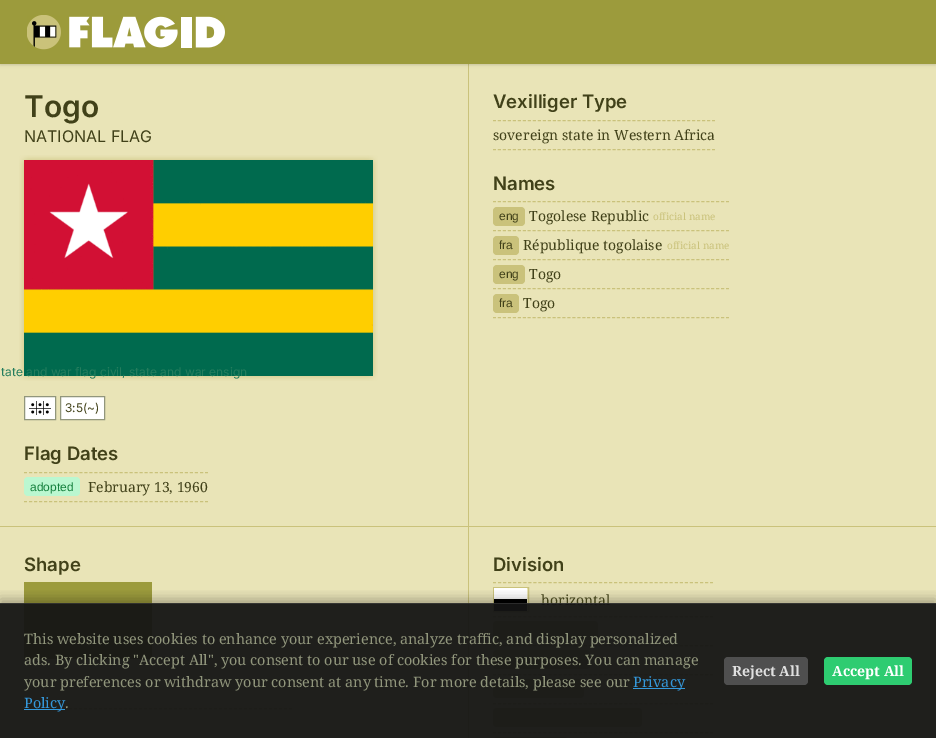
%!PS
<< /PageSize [936 738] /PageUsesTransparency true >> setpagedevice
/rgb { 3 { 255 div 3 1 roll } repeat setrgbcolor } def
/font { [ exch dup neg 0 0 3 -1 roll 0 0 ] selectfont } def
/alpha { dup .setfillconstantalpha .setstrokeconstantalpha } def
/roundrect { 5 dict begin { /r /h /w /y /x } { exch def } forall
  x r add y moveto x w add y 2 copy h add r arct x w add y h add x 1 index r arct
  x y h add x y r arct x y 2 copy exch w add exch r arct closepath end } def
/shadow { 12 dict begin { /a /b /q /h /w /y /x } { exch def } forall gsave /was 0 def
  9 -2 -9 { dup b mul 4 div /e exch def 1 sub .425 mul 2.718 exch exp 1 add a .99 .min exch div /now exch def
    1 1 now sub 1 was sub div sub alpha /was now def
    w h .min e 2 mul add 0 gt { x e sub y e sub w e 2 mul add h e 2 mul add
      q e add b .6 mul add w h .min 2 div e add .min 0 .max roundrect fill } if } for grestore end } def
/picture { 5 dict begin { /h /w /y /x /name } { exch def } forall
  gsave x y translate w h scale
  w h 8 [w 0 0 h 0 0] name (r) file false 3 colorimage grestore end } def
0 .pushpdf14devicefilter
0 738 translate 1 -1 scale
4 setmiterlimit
202 194 123 rgb
0 0 936 738 rectfill
233 228 183 rgb
0 64 468 462 rectfill
469 64 467 462 rectfill
0 0 0 rgb
1 2 934 62 0 1 0.1 shadow
0 1 936 64 0 1.5 0.1 shadow
156 155 60 rgb
0 0 936 64 rectfill
(img/1.rgb) 27 15 198 35 picture
(img/2.rgb) 19 155 359 226 picture
255 255 255 rgb
24.5 396.5 moveto 55.5 396.5 lineto 55.5 419.5 lineto 24.5 419.5 lineto closepath gsave fill grestore
145 150 124 rgb
stroke
(img/3.rgb) 29 401 22 14 picture
255 255 255 rgb
60.5 396.5 moveto 104.5 396.5 lineto 104.5 419.5 lineto 60.5 419.5 lineto closepath gsave fill grestore
145 150 124 rgb
stroke
202 194 123 rgb
[3 2.03] 0 setdash
24 472.5 moveto 208 472.5 lineto stroke
24 501.5 moveto 208 501.5 lineto stroke
187 247 208 rgb
24 477 56 19 4 roundrect fill
202 194 123 rgb
[3 1.98] 0 setdash
493 120.5 moveto 715 120.5 lineto stroke
493 149.5 moveto 715 149.5 lineto stroke
[3 1.96] 0 setdash
493 201.5 moveto 729 201.5 lineto stroke
493 230.5 moveto 729 230.5 lineto stroke
493 207 32 19 4 roundrect fill
493 259.5 moveto 729 259.5 lineto stroke
493 236 26 19 4 roundrect fill
493 288.5 moveto 729 288.5 lineto stroke
493 265 32 19 4 roundrect fill
493 317.5 moveto 729 317.5 lineto stroke
493 294 26 19 4 roundrect fill
233 228 183 rgb
0 527 468 211 rectfill
156 155 60 rgb
24 582 128 77 rectfill
202 194 123 rgb
[3 2] 0 setdash
24 679.5 moveto 292 679.5 lineto stroke
24 708.5 moveto 292 708.5 lineto stroke
233 228 183 rgb
469 527 467 211 rectfill
202 194 123 rgb
[3 2.05] 0 setdash
493 582.5 moveto 713 582.5 lineto stroke
493 616.5 moveto 713 616.5 lineto stroke
[] 0 setdash
493.5 587.5 35 24 rectstroke
255 255 255 rgb
494 588 33 11 rectfill
0 0 0 rgb
494 599 33 12 rectfill
202 194 123 rgb
[3 2.05] 0 setdash
493 645.5 moveto 713 645.5 lineto stroke
493 621 105 19 4 roundrect fill
493 674.5 moveto 713 674.5 lineto stroke
493 650 97 19 4 roundrect fill
493 703.5 moveto 713 703.5 lineto stroke
493 679 91 19 4 roundrect fill
493 732.5 moveto 713 732.5 lineto stroke
493 708 149 19 4 roundrect fill
493 737 75 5 4 roundrect fill
gsave
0 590 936 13 rectclip
0 0 0 rgb
0 599 936 135 0 6 0.3 shadow
grestore
/Inter-SemiBold 30 font
65 65 25 rgb
24 117 moveto (Togo) show
/Inter-Regular 16 font
24 142 moveto (NATIONAL FLAG) show
/Inter-Regular 12 font
36 125 93 rgb
1 376 moveto (tate and war flag civil, state and war ensign) show
65 65 25 rgb
65 412 moveto (3:5\(~\)) show
/Inter-SemiBold 18.5 font
24 460 moveto (Flag Dates) show
/LiberationSans-Regular 12 font
21 128 61 rgb
30 491 moveto (adopted) show
/NotoSerif-Regular 14 font
65 65 25 rgb
88 492 moveto (February 13, 1960) show
/Inter-SemiBold 18.5 font
493 108 moveto (Vexilliger Type) show
/NotoSerif-Regular 14 font
493 140 moveto (sovereign state in Western Africa) show
/Inter-SemiBold 18.5 font
493 190 moveto (Names) show
/LiberationSans-Regular 12 font
499 220 moveto (eng) show
/NotoSerif-Regular 14 font
529 221 moveto (Togolese Republic) show
/NotoSerif-Regular 10 font
202 194 123 rgb
653 220 moveto (official name) show
/LiberationSans-Regular 12 font
65 65 25 rgb
499 249 moveto (fra) show
/NotoSerif-Regular 14 font
523 250 moveto (République togolaise) show
/NotoSerif-Regular 10 font
202 194 123 rgb
667 249 moveto (official name) show
/LiberationSans-Regular 12 font
65 65 25 rgb
499 278 moveto (eng) show
/NotoSerif-Regular 14 font
529 279 moveto (Togo) show
/LiberationSans-Regular 12 font
499 307 moveto (fra) show
/NotoSerif-Regular 14 font
523 308 moveto (Togo) show
/Inter-SemiBold 18.5 font
24 571 moveto (Shape) show
493 571 moveto (Division) show
/NotoSerif-Regular 14 font
541 605 moveto (horizontal) show
0.95 alpha
20 20 20 rgb
0 603 936 135 rectfill
0.1 alpha
255 255 255 rgb
0 603 936 1 rectfill
/NotoSerif-Regular 14.4 font
1 alpha
145 150 124 rgb
[
  [(This website uses cookies to enhance your experience, analyze traffic, and display personalized) 24 644]
  [(ads. By clicking "Accept All", you consent to our use of cookies for these purposes. You can manage) 24 665]
  [(your preferences or withdraw your consent at any time. For more details, please see our) 24 687]
] { aload pop moveto show } forall
52 152 219 rgb
633 688 52 1 rectfill
633 687 moveto (Privacy) show
24 709 41 1 rectfill
24 708 moveto (Policy) show
145 150 124 rgb
65 708 moveto (.) show
79 79 79 rgb
724 657 84 28 4 roundrect fill
/NotoSerif-Bold 14 font
224 224 224 rgb
732 676 moveto (Reject All) show
46 204 113 rgb
824 657 88 28 4 roundrect fill
255 255 255 rgb
832 676 moveto (Accept All) show
.poppdf14devicefilter showpage
